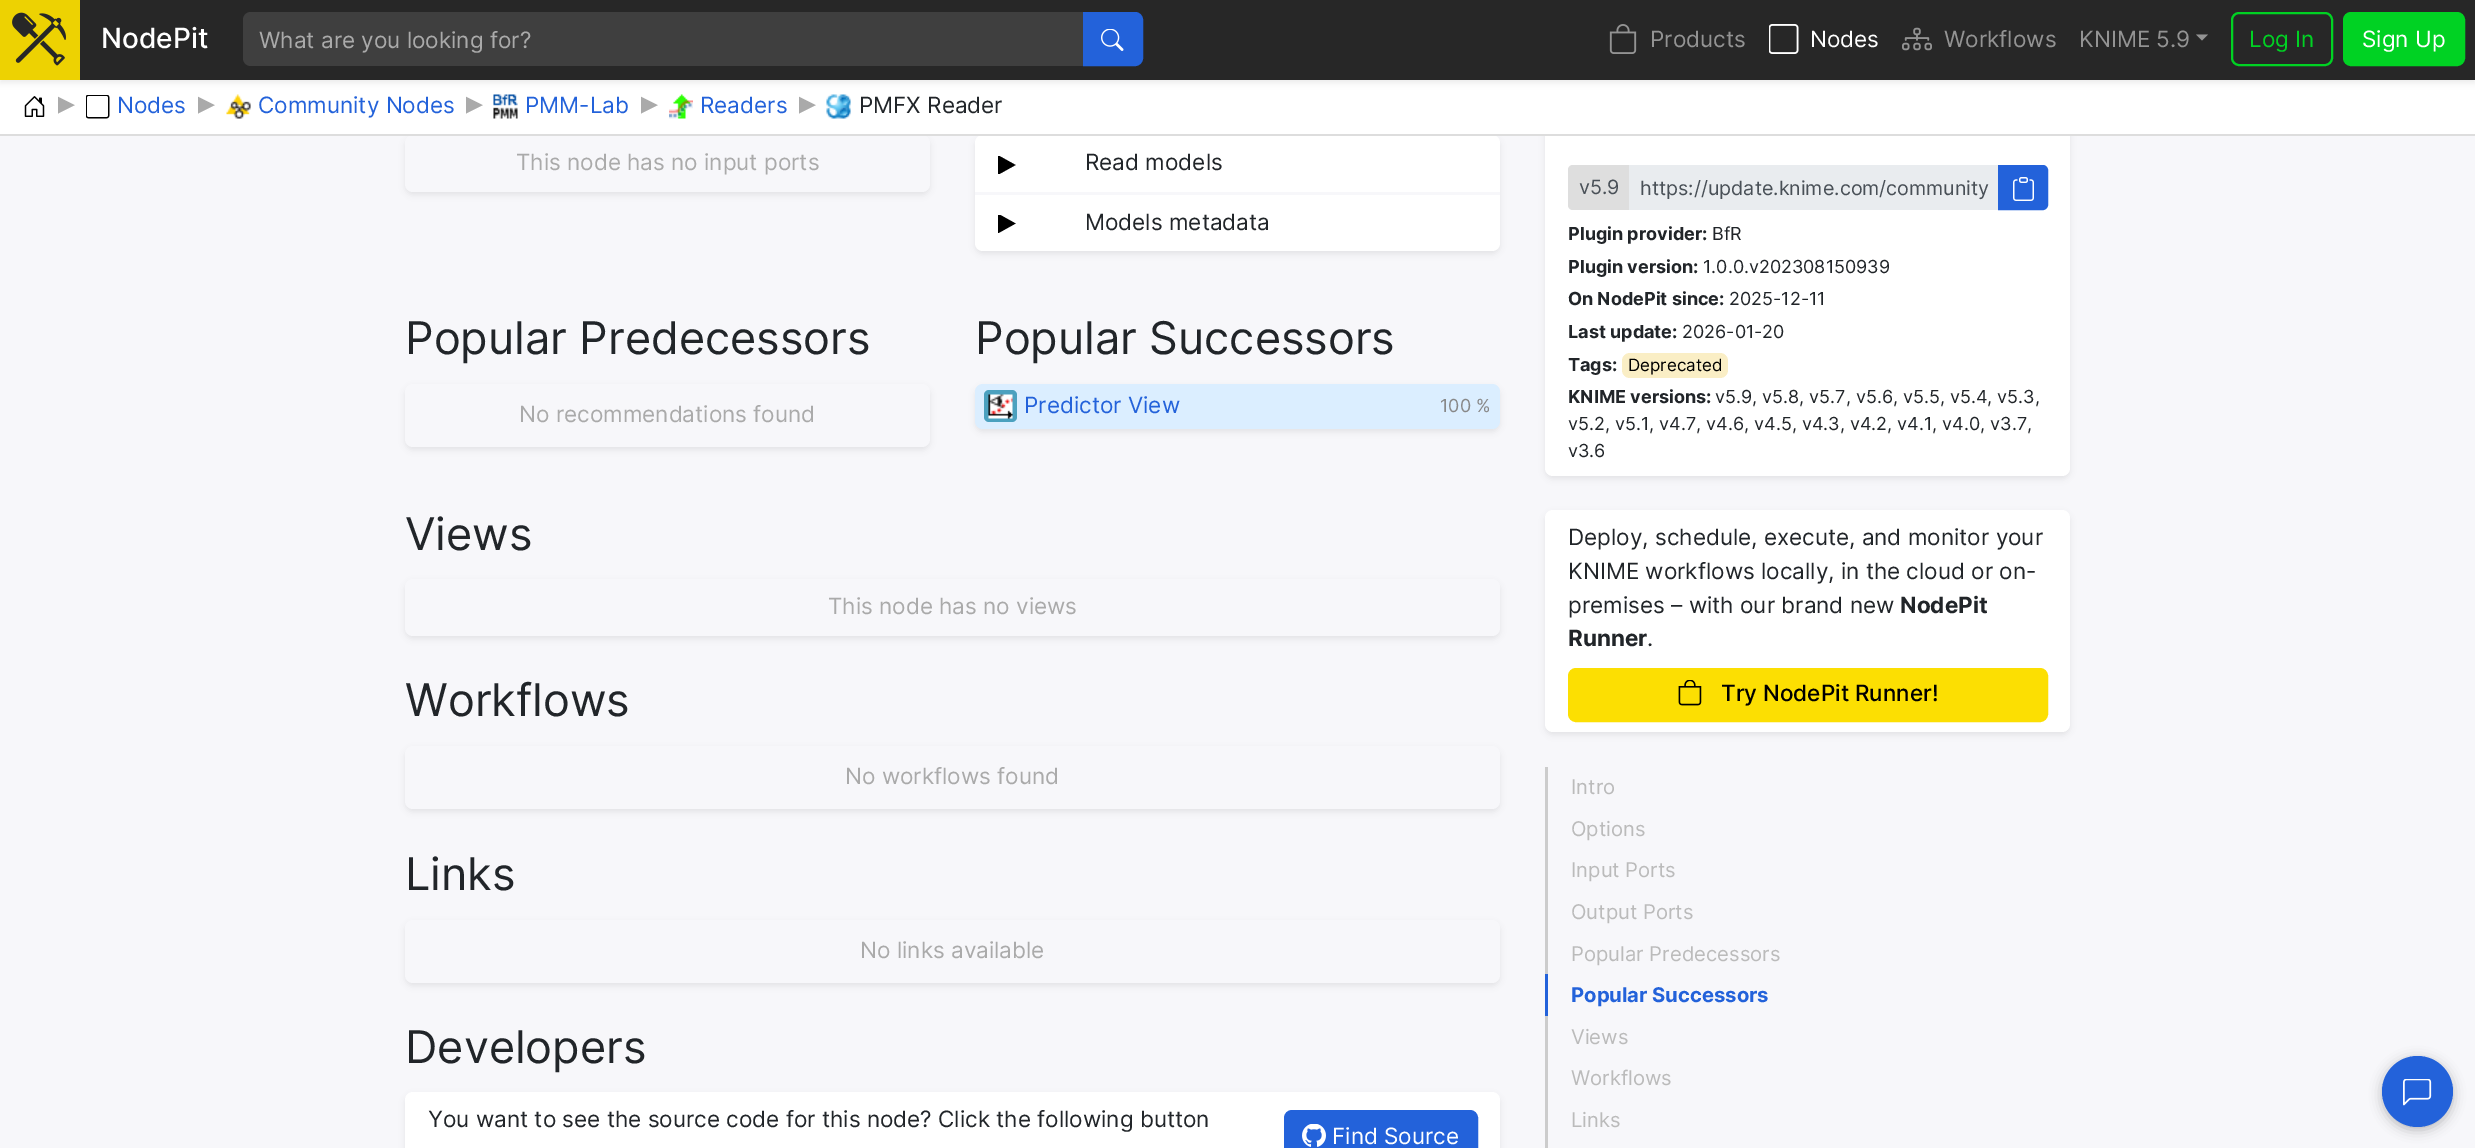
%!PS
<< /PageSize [2475 1148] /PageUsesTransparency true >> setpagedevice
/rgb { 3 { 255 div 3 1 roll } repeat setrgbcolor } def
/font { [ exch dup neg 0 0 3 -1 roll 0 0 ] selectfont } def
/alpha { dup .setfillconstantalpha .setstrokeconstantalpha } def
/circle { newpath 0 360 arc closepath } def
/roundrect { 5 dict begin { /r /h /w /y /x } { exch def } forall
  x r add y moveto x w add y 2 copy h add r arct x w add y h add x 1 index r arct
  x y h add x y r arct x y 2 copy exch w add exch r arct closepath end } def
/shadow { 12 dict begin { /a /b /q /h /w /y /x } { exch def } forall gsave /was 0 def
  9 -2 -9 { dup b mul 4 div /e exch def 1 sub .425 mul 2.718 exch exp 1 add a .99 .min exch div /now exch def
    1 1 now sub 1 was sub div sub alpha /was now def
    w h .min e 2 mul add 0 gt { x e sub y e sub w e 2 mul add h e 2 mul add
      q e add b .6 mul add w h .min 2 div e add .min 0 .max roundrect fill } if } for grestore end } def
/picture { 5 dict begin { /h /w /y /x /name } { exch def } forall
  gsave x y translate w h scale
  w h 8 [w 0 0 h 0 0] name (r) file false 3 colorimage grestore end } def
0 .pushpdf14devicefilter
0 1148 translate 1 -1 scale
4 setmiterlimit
247 247 250 rgb
0 0 2475 1148 rectfill
0 0 0 rgb
405 138 525 57 8 3 0.07 shadow
gsave
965 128 moveto 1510 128 lineto 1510 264 lineto 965 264 lineto closepath 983 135 moveto 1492 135 lineto 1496.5 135 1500 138.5 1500 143 curveto 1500 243 lineto 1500 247.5 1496.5 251 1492 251 curveto 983 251 lineto 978.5 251 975 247.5 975 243 curveto 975 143 lineto 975 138.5 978.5 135 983 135 curveto closepath eoclip newpath
975 138 525 116 8 3 0.07 shadow
grestore
1545 11 525 468 8 3 0.07 shadow
255 255 255 rgb
1545 8 525 468 8 roundrect fill
0 80 2475 54 rectfill
0 0 0 rgb
0 3 2475 80 0 3 0.07 shadow
39 39 39 rgb
80 0 2395 80 rectfill
237 210 2 rgb
0 0 80 80 rectfill
(img/1.rgb) 12 12 54 54 picture
63 63 63 rgb
251 12 moveto 1085 12 lineto 1085 66 lineto 251 66 lineto 246.5 66 243 62.5 243 58 curveto 243 20 lineto 243 15.5 246.5 12 251 12 curveto closepath fill
35 98 218 rgb
1084 13 moveto 1135 13 lineto 1139 13 1142 16 1142 20 curveto 1142 58 lineto 1142 62 1139 65 1135 65 curveto 1084 65 lineto closepath gsave fill grestore
2 setlinewidth
stroke
(img/2.rgb) 1101 29 23 22 picture
(img/3.rgb) 1609 24 28 30 picture
(img/4.rgb) 1769 24 30 30 picture
(img/5.rgb) 1902 27 30 24 picture
147 147 147 rgb
2196 34.5 moveto 2208 34.5 lineto 2202 40.5 lineto closepath fill
0 210 35 rgb
2232 13 100 52 7 roundrect stroke
2344 13 120 52 7 roundrect gsave fill grestore
stroke
247 247 250 rgb
405 135 525 57 8 roundrect fill
255 255 255 rgb
983 135 moveto 1062 135 lineto 1062 192 lineto 975 192 lineto 975 143 lineto 975 138.5 978.5 135 983 135 curveto closepath fill
1062 135 moveto 1492 135 lineto 1496.5 135 1500 138.5 1500 143 curveto 1500 192 lineto 1062 192 lineto closepath fill
221 221 221 rgb
0 134 2475 2 rectfill
(img/6.rgb) 24 96 21 21 picture
(img/7.rgb) 86 95 24 24 picture
(img/8.rgb) 226 94 25 25 picture
(img/9.rgb) 493 94 25 25 picture
(img/10.rgb) 669 94 24 25 picture
(img/11.rgb) 826 94 25 25 picture
0 0 0 rgb
999 157.5 moveto 1012.5 165 lineto 999 172.5 lineto closepath fill
gsave
998 156 18 18 rectclip
3 setlinewidth
999 157.5 moveto 1012.5 165 lineto 999 172.5 lineto closepath stroke
grestore
255 255 255 rgb
975 195 moveto 1062 195 lineto 1062 251 lineto 983 251 lineto 978.5 251 975 247.5 975 243 curveto closepath fill
0 0 0 rgb
999 216 moveto 1012.5 223.5 lineto 999 231 lineto closepath fill
gsave
998 215 18 18 rectclip
3 setlinewidth
999 216 moveto 1012.5 223.5 lineto 999 231 lineto closepath stroke
grestore
255 255 255 rgb
1062 195 moveto 1500 195 lineto 1500 243 lineto 1500 247.5 1496.5 251 1492 251 curveto 1062 251 lineto closepath fill
0 0 0 rgb
405 387 525 63 8 3 0.07 shadow
247 247 250 rgb
405 384 525 63 8 roundrect fill
0 0 0 rgb
975 387 525 45 8 3 0.07 shadow
219 238 255 rgb
975 384 525 45 8 roundrect fill
75 161 191 rgb
984 390 33 32 5 roundrect fill
(img/12.rgb) 988 394 25 25 picture
0 0 0 rgb
405 582 1095 57 8 3 0.07 shadow
247 247 250 rgb
405 579 1095 57 8 roundrect fill
0 0 0 rgb
405 749 1095 63 8 3 0.07 shadow
247 247 250 rgb
405 746 1095 63 8 roundrect fill
0 0 0 rgb
405 923 1095 63 8 3 0.07 shadow
247 247 250 rgb
405 920 1095 63 8 roundrect fill
0 0 0 rgb
405 1095 1095 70 8 3 0.07 shadow
255 255 255 rgb
405 1092 1095 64 8 roundrect fill
35 98 218 rgb
1285 1111 192 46 7 roundrect gsave fill grestore
stroke
(img/13.rgb) 1302 1124 24 23 picture
222 222 222 rgb
1573 165 moveto 1631 165 lineto 1631 210 lineto 1573 210 lineto 1570 210 1568 208 1568 205 curveto 1568 170 lineto 1568 167 1570 165 1573 165 curveto closepath fill
233 236 239 rgb
1629 165 369 45 rectfill
35 98 218 rgb
1999 166 moveto 2043 166 lineto 2045 166 2047 168 2047 170 curveto 2047 205 lineto 2047 207 2045 209 2043 209 curveto 1999 209 lineto closepath gsave fill grestore
stroke
(img/14.rgb) 2013 177 21 24 picture
250 238 197 rgb
1622 353 106 25 8 roundrect fill
0 0 0 rgb
1545 513 525 222 8 3 0.07 shadow
255 255 255 rgb
1545 510 525 222 8 roundrect fill
252 223 2 rgb
1569 669 478 52 7 roundrect gsave fill grestore
stroke
(img/15.rgb) 1678 680 24 26 picture
[
  [1545 767 3 207 204 204 204]
  [1545 974 3 42 35 98 218]
  [1545 1016 3 132 204 204 204]
] { aload pop rgb rectfill } forall
0 0 0 rgb
2382 1059 71 71 35.5 6 0.25 shadow
35 98 218 rgb
2417.5 1091.5 35.5 circle fill
(img/16.rgb) 2403 1079 29 27 picture
/Inter-Medium 28 font
255 255 255 rgb
101 48 moveto (NodePit) show
/Inter-Regular 22.5 font
170 170 170 rgb
259 48 moveto (What are you looking for?) show
147 147 147 rgb
1650 47 moveto (Products) show
255 255 255 rgb
1810 47 moveto (Nodes) show
147 147 147 rgb
1944 47 moveto (Workflows) show
2079 47 moveto (KNIME 5.9) show
0 210 35 rgb
2249 47 moveto (Log In) show
255 255 255 rgb
2362 47 moveto (Sign Up) show
/DejaVuSans-Regular 34 font
170 170 170 rgb
58 114 moveto (▸) show
/Inter-Regular 22.5 font
35 98 218 rgb
117 113 moveto (Nodes) show
/DejaVuSans-Regular 34 font
170 170 170 rgb
198 114 moveto (▸) show
/Inter-Regular 22.5 font
35 98 218 rgb
258 113 moveto (Community Nodes) show
/DejaVuSans-Regular 34 font
170 170 170 rgb
466 114 moveto (▸) show
/Inter-Regular 22.5 font
35 98 218 rgb
525 113 moveto (PMM-Lab) show
/DejaVuSans-Regular 34 font
170 170 170 rgb
641 114 moveto (▸) show
/Inter-Regular 22.5 font
35 98 218 rgb
700 113 moveto (Readers) show
/DejaVuSans-Regular 34 font
170 170 170 rgb
799 114 moveto (▸) show
/Inter-Regular 22.5 font
33 37 41 rgb
859 113 moveto (PMFX Reader) show
170 170 170 rgb
516 170 moveto (This node has no input ports) show
33 37 41 rgb
1085 170 moveto (Read models) show
1085 230 moveto (Models metadata) show
/Inter-Regular 45 font
405 354 moveto (Popular Predecessors) show
/Inter-Regular 22.5 font
170 170 170 rgb
519 422 moveto (No recommendations found) show
/Inter-Regular 45 font
33 37 41 rgb
975 354 moveto (Popular Successors) show
/Inter-Regular 22.5 font
35 98 218 rgb
1024 413 moveto (Predictor View) show
/Inter-Regular 18 font
136 136 136 rgb
1440 412 moveto (100 %) show
/Inter-Regular 45 font
33 37 41 rgb
405 550 moveto (Views) show
/Inter-Regular 22.5 font
170 170 170 rgb
828 614 moveto (This node has no views) show
/Inter-Regular 45 font
33 37 41 rgb
405 716 moveto (Workflows) show
/Inter-Regular 22.5 font
170 170 170 rgb
845 784 moveto (No workflows found) show
/Inter-Regular 45 font
33 37 41 rgb
405 890 moveto (Links) show
/Inter-Regular 22.5 font
170 170 170 rgb
860 958 moveto (No links available) show
/Inter-Regular 45 font
33 37 41 rgb
405 1063 moveto (Developers) show
/Inter-Regular 22.5 font
428 1127 moveto (You want to see the source code for this node? Click the following button) show
255 255 255 rgb
1332 1144 moveto (Find Source) show
/Inter-Regular 19.7 font
73 80 87 rgb
1579 194 moveto (v5.9) show
1640 195 moveto (https://update.knime.com/community) show
/Inter-Bold 18 font
33 37 41 rgb
1568 240 moveto (Plugin provider:) show
/Inter-Regular 18 font
1712 240 moveto (BfR) show
/Inter-Bold 18 font
1568 273 moveto (Plugin version:) show
/Inter-Regular 18 font
1703 273 moveto (1.0.0.v202308150939) show
/Inter-Bold 18 font
1568 305 moveto (On NodePit since:) show
/Inter-Regular 18 font
1729 305 moveto (2025-12-11) show
/Inter-Bold 18 font
1568 338 moveto (Last update:) show
/Inter-Regular 18 font
1682 338 moveto (2026-01-20) show
/Inter-Bold 18 font
1568 371 moveto (Tags:) show
/Inter-Regular 17 font
0 0 0 rgb
1628 371 moveto (Deprecated) show
/Inter-Bold 18 font
33 37 41 rgb
1568 403 moveto (KNIME versions:) show
/Inter-Regular 18 font
[
  [(v5.9, v5.8, v5.7, v5.6, v5.5, v5.4, v5.3,) 1715 403]
  [(v5.2, v5.1, v4.7, v4.6, v4.5, v4.3, v4.2, v4.1, v4.0, v3.7,) 1568 430]
  [(v3.6) 1568 457]
] { aload pop moveto show } forall
/Inter-Regular 22.5 font
[
  [(Deploy, schedule, execute, and monitor your) 1568 545]
  [(KNIME workflows locally, in the cloud or on-) 1568 579]
  [(premises – with our brand new) 1568 613]
] { aload pop moveto show } forall
/Inter-Bold 22.5 font
1900 613 moveto (NodePit) show
1568 646 moveto (Runner) show
/Inter-Regular 22.5 font
1647 646 moveto (.) show
/Inter-Medium 22.5 font
0 0 0 rgb
1721 701 moveto (Try NodePit Runner!) show
/Inter-Regular 20.25 font
187 187 187 rgb
[
  [(Intro) 1571 794]
  [(Options) 1571 836]
  [(Input Ports) 1571 877]
  [(Output Ports) 1571 919]
  [(Popular Predecessors) 1571 961]
] { aload pop moveto show } forall
/Inter-Bold 20.25 font
35 98 218 rgb
1571 1002 moveto (Popular Successors) show
/Inter-Regular 20.25 font
187 187 187 rgb
[
  [(Views) 1571 1044]
  [(Workflows) 1571 1085]
  [(Links) 1571 1127]
] { aload pop moveto show } forall
.poppdf14devicefilter showpage
